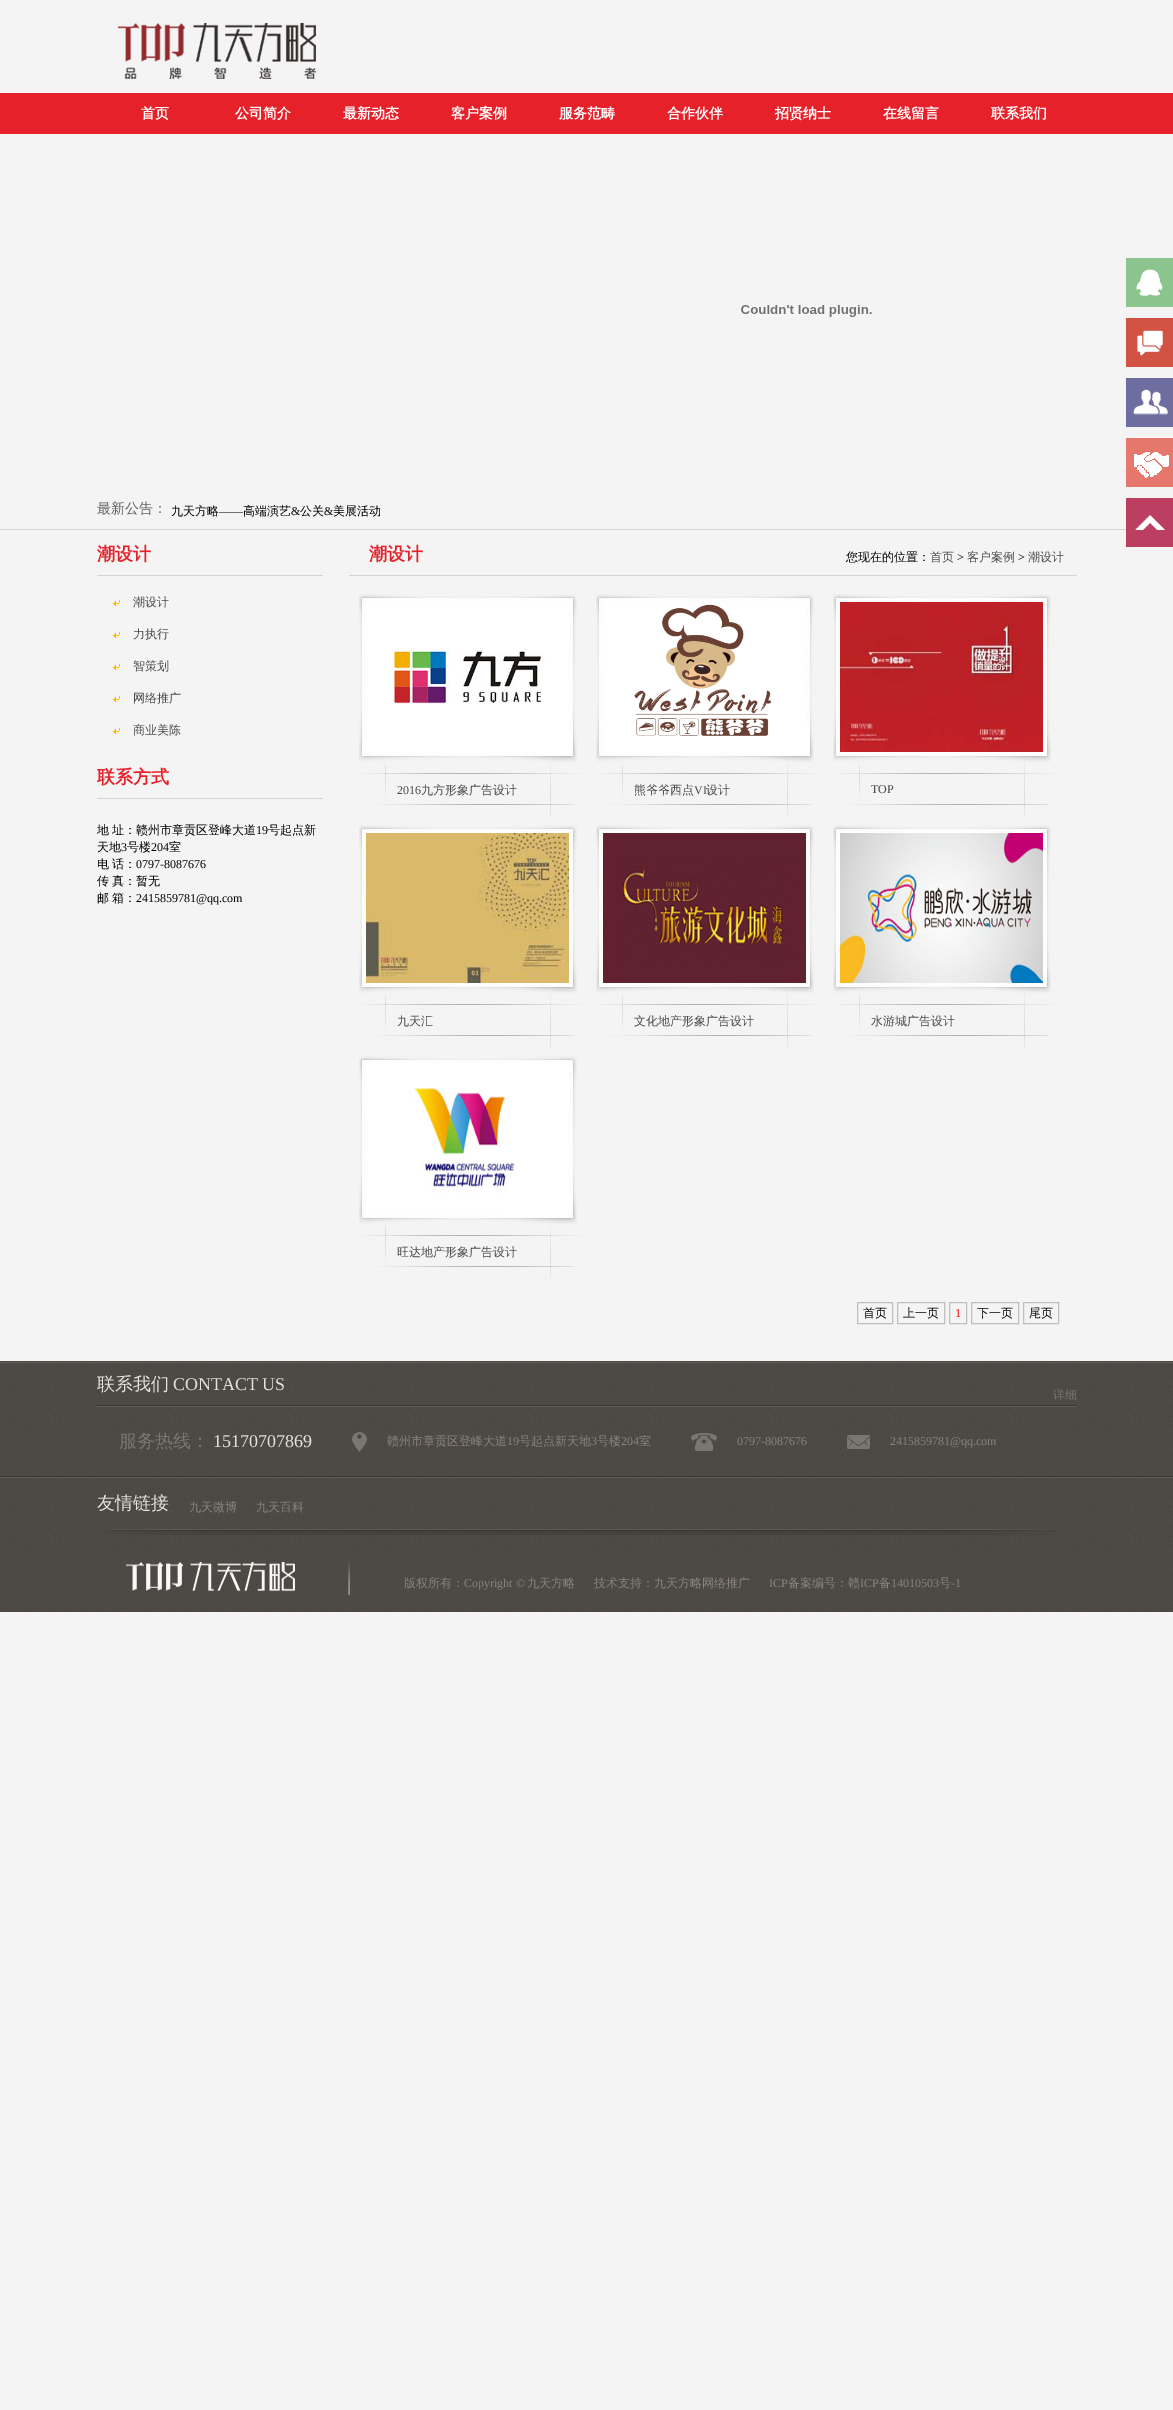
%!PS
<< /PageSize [1173 2410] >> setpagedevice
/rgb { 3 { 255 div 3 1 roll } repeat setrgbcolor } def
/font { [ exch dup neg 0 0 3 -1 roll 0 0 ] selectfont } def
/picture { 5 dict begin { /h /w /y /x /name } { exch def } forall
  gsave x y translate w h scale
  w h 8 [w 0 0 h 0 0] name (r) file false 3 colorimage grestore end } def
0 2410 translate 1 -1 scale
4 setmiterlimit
244 244 244 rgb
0 0 1173 2410 rectfill
211 211 211 rgb
0 529 1126 1 rectfill
(img/1.rgb) 118 23 198 56 picture
230 33 42 rgb
0 93 1173 41 rectfill
(img/2.rgb) 741 305 131 12 picture
(img/3.rgb) 1126 258 47 49 picture
(img/4.rgb) 1126 318 47 49 picture
(img/5.rgb) 1126 378 47 49 picture
(img/6.rgb) 1126 438 47 49 picture
(img/7.rgb) 1126 498 47 49 picture
211 211 211 rgb
97 575 226 1 rectfill
(img/8.rgb) 113 600 7 6 picture
(img/8.rgb) 113 632 7 6 picture
(img/8.rgb) 113 664 7 6 picture
(img/8.rgb) 113 696 7 6 picture
(img/8.rgb) 113 728 7 6 picture
97 798 226 1 rectfill
349 575 728 1 rectfill
(img/9.rgb) 359 594 218 168 picture
(img/10.rgb) 366 602 203 150 picture
(img/11.rgb) 362 762 224 55 picture
(img/9.rgb) 596 594 218 168 picture
(img/12.rgb) 603 602 203 150 picture
(img/11.rgb) 599 762 224 55 picture
(img/9.rgb) 833 594 218 168 picture
(img/13.rgb) 840 602 203 150 picture
(img/11.rgb) 836 762 224 55 picture
(img/9.rgb) 359 825 218 168 picture
(img/14.rgb) 366 833 203 150 picture
(img/11.rgb) 362 993 224 55 picture
(img/9.rgb) 596 825 218 168 picture
(img/15.rgb) 603 833 203 150 picture
(img/11.rgb) 599 993 224 55 picture
(img/9.rgb) 833 825 218 168 picture
(img/16.rgb) 840 833 203 150 picture
(img/11.rgb) 836 993 224 55 picture
(img/9.rgb) 359 1056 218 168 picture
(img/17.rgb) 366 1064 203 150 picture
(img/11.rgb) 362 1224 224 55 picture
191 191 191 rgb
857.5 1302.5 35 21 rectstroke
897.5 1302.5 47 21 rectstroke
949.5 1302.5 17 21 rectstroke
971.5 1302.5 47 21 rectstroke
1023.5 1302.5 35 21 rectstroke
(img/18.rgb) 0 1363 1173 249 picture
[
  [0 1361 1173 1 75 73 71]
  [0 1362 1173 1 96 94 86]
  [0 1476 1173 1 58 54 52]
  [97 1405 980 1 57 55 51]
  [97 1406 980 1 96 94 86]
] { aload pop rgb rectfill } forall
(img/19.rgb) 352 1432 15 20 picture
(img/20.rgb) 691 1433 26 18 picture
(img/21.rgb) 847 1435 23 14 picture
96 93 85 rgb
0 1477 1173 1 rectfill
(img/22.rgb) 105 1529 956 6 picture
(img/23.rgb) 348 1560 2 35 picture
(img/24.rgb) 126 1562 169 30 picture
/WenQuanYiZenHei-Bold 14 font
255 255 255 rgb
[
  [(首页) 141 118]
  [(公司简介) 235 118]
  [(最新动态) 343 118]
  [(客户案例) 451 118]
  [(服务范畴) 559 118]
  [(合作伙伴) 667 118]
  [(招贤纳士) 775 118]
  [(在线留言) 883 118]
  [(联系我们) 991 118]
] { aload pop moveto show } forall
/WenQuanYiZenHei-Medium 14 font
97 94 94 rgb
97 513 moveto (最新公告：) show
/WenQuanYiZenHei-Medium 12 font
0 0 0 rgb
171 515 moveto (九天方略) show
/LiberationSerif-Regular 12 font
219 515 moveto (——) show
/WenQuanYiZenHei-Medium 12 font
243 515 moveto (高端演艺) show
/LiberationSerif-Regular 12 font
291 515 moveto (&) show
/WenQuanYiZenHei-Medium 12 font
300 515 moveto (公关) show
/LiberationSerif-Regular 12 font
324 515 moveto (&) show
/WenQuanYiZenHei-Medium 12 font
333 515 moveto (美展活动) show
/WenQuanYiZenHei-Bold 18 font
230 33 42 rgb
97 560 moveto (潮设计) show
/WenQuanYiZenHei-Medium 12 font
74 74 74 rgb
[
  [(潮设计) 133 606]
  [(力执行) 133 638]
  [(智策划) 133 670]
  [(网络推广) 133 702]
  [(商业美陈) 133 734]
] { aload pop moveto show } forall
/WenQuanYiZenHei-Bold 18 font
230 33 42 rgb
97 783 moveto (联系方式) show
/WenQuanYiZenHei-Medium 12 font
0 0 0 rgb
97 834 moveto (地) show
112 834 moveto (址：赣州市章贡区登峰大道) show
/LiberationSerif-Regular 12 font
256 834 moveto (19) show
/WenQuanYiZenHei-Medium 12 font
268 834 moveto (号起点新) show
97 851 moveto (天地) show
/LiberationSerif-Regular 12 font
121 851 moveto (3) show
/WenQuanYiZenHei-Medium 12 font
127 851 moveto (号楼) show
/LiberationSerif-Regular 12 font
151 851 moveto (204) show
/WenQuanYiZenHei-Medium 12 font
[
  [(室) 169 851]
  [(电) 97 868]
  [(话：) 112 868]
] { aload pop moveto show } forall
/LiberationSerif-Regular 12 font
136 868 moveto (0797-8087676) show
/WenQuanYiZenHei-Medium 12 font
[
  [(传) 97 885]
  [(真：暂无) 112 885]
  [(邮) 97 902]
  [(箱：) 112 902]
] { aload pop moveto show } forall
/LiberationSerif-Regular 12 font
136 902 moveto (2415859781@qq.com) show
/WenQuanYiZenHei-Bold 18 font
230 33 42 rgb
369 560 moveto (潮设计) show
/WenQuanYiZenHei-Medium 12 font
0 0 0 rgb
846 561 moveto (您现在的位置：) show
74 74 74 rgb
930 561 moveto (首页) show
/LiberationSerif-Regular 12 font
0 0 0 rgb
957 561 moveto (>) show
/WenQuanYiZenHei-Medium 12 font
74 74 74 rgb
967 561 moveto (客户案例) show
/LiberationSerif-Regular 12 font
0 0 0 rgb
1018 561 moveto (>) show
/WenQuanYiZenHei-Medium 12 font
74 74 74 rgb
1028 561 moveto (潮设计) show
/LiberationSerif-Regular 12 font
397 794 moveto (2016) show
/WenQuanYiZenHei-Medium 12 font
421 794 moveto (九方形象广告设计) show
634 794 moveto (熊爷爷西点) show
/LiberationSerif-Regular 12 font
694 794 moveto (VI) show
/WenQuanYiZenHei-Medium 12 font
706 794 moveto (设计) show
/LiberationSerif-Regular 12 font
871 793 moveto (TOP) show
/WenQuanYiZenHei-Medium 12 font
[
  [(九天汇) 397 1025]
  [(文化地产形象广告设计) 634 1025]
  [(水游城广告设计) 871 1025]
  [(旺达地产形象广告设计) 397 1256]
] { aload pop moveto show } forall
0 0 0 rgb
863 1317 moveto (首页) show
903 1317 moveto (上一页) show
/LiberationSerif-Regular 12 font
255 0 0 rgb
955 1317 moveto (1) show
/WenQuanYiZenHei-Medium 12 font
0 0 0 rgb
977 1317 moveto (下一页) show
1029 1317 moveto (尾页) show
/WenQuanYiZenHei-Medium 18 font
230 226 219 rgb
97 1390 moveto (联系我们) show
/LiberationSerif-Regular 18 font
173 1390 moveto (CONTACT US) show
/WenQuanYiZenHei-Medium 12 font
121 119 114 rgb
1053 1399 moveto (详细) show
/WenQuanYiZenHei-Medium 18 font
119 1447 moveto (服务热线：) show
/LiberationSerif-Regular 18 font
230 226 219 rgb
213 1447 moveto (15170707869) show
/WenQuanYiZenHei-Medium 12 font
137 131 125 rgb
387 1445 moveto (赣州市章贡区登峰大道) show
/LiberationSerif-Regular 12 font
507 1445 moveto (19) show
/WenQuanYiZenHei-Medium 12 font
519 1445 moveto (号起点新天地) show
/LiberationSerif-Regular 12 font
591 1445 moveto (3) show
/WenQuanYiZenHei-Medium 12 font
597 1445 moveto (号楼) show
/LiberationSerif-Regular 12 font
621 1445 moveto (204) show
/WenQuanYiZenHei-Medium 12 font
639 1445 moveto (室) show
/LiberationSerif-Regular 12 font
737 1445 moveto (0797-8087676) show
890 1445 moveto (2415859781@qq.com) show
/WenQuanYiZenHei-Medium 18 font
230 226 219 rgb
97 1509 moveto (友情链接) show
/WenQuanYiZenHei-Medium 12 font
137 131 125 rgb
[
  [(九天微博) 189 1511]
  [(九天百科) 256 1511]
  [(版权所有：) 404 1587]
] { aload pop moveto show } forall
/LiberationSerif-Regular 12 font
464 1587 moveto (Copyright ©) show
/WenQuanYiZenHei-Medium 12 font
527 1587 moveto (九天方略) show
594 1587 moveto (技术支持：九天方略网络推广) show
/LiberationSerif-Regular 12 font
769 1587 moveto (ICP) show
/WenQuanYiZenHei-Medium 12 font
788 1587 moveto (备案编号：赣) show
/LiberationSerif-Regular 12 font
860 1587 moveto (ICP) show
/WenQuanYiZenHei-Medium 12 font
879 1587 moveto (备) show
/LiberationSerif-Regular 12 font
891 1587 moveto (14010503) show
/WenQuanYiZenHei-Medium 12 font
939 1587 moveto (号) show
/LiberationSerif-Regular 12 font
951 1587 moveto (-1) show
showpage
